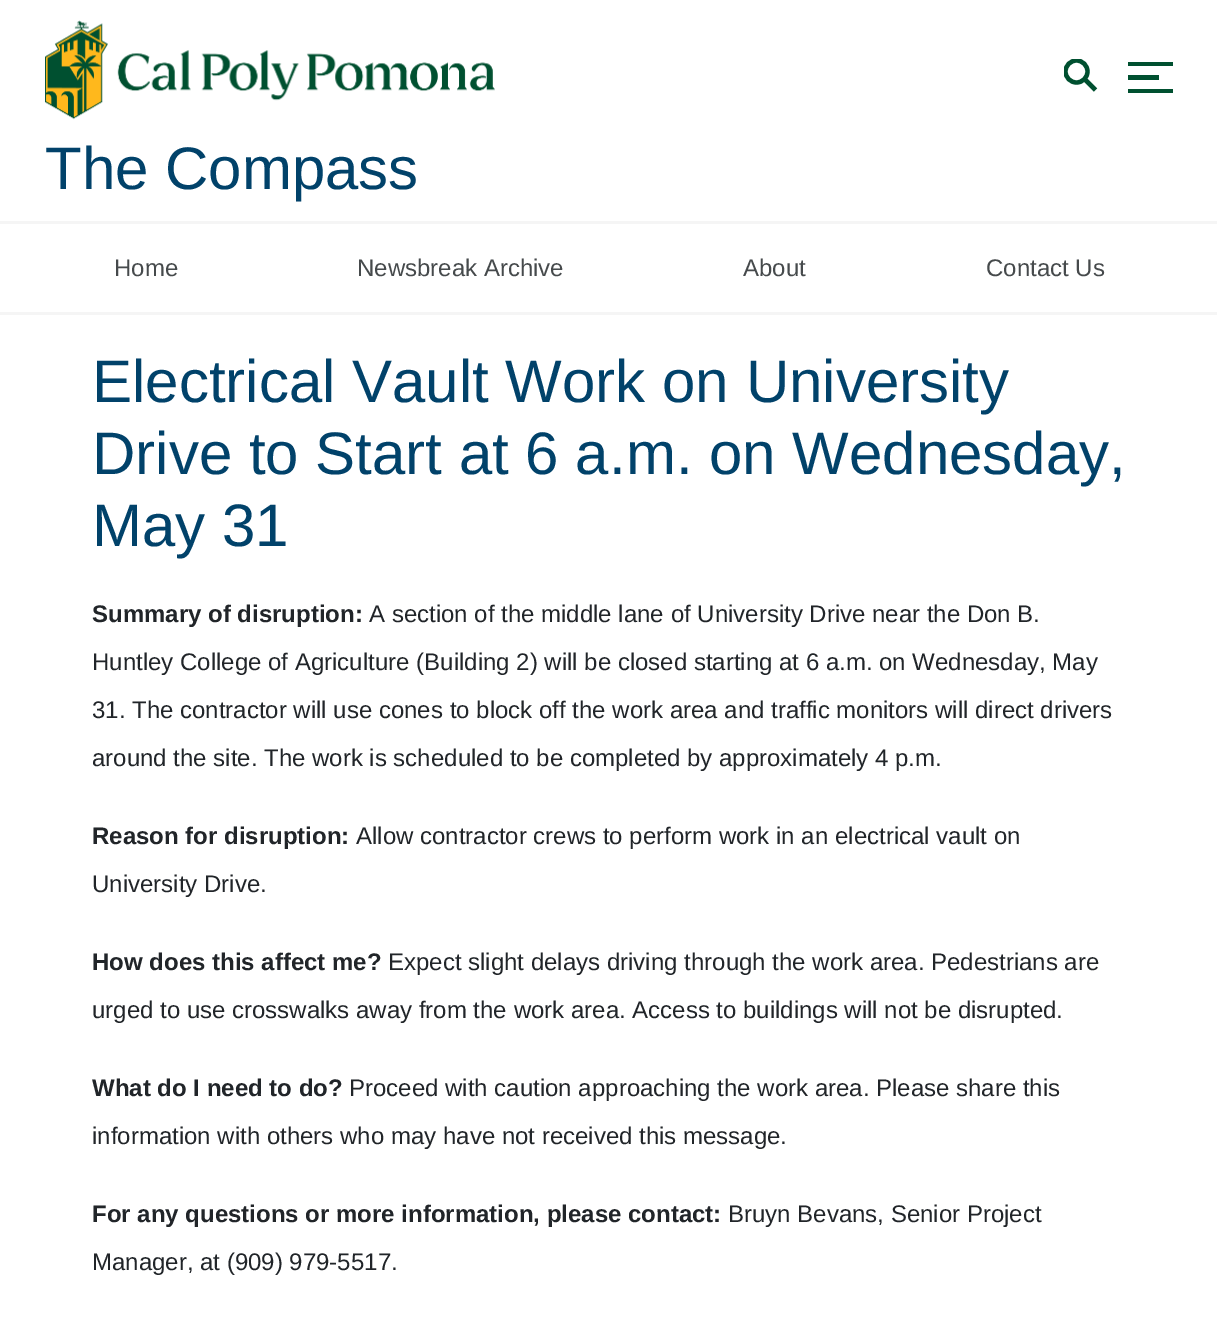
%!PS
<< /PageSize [1217 1332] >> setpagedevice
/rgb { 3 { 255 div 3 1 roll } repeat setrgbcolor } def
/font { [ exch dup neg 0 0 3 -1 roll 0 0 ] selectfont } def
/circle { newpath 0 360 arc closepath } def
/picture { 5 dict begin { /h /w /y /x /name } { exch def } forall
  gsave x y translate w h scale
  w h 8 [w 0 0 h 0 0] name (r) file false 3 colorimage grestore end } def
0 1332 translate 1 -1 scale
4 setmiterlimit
255 255 255 rgb
0 0 1217 1332 rectfill
(img/1.rgb) 45 20 450 100 picture
gsave
1064 59 34 33 rectclip
0 80 48 rgb
4.3 setlinewidth
1076.5 71.5 11 circle stroke
grestore
0 80 48 rgb
4.3 setlinewidth
1085 79.5 moveto 1095.5 90 lineto stroke
[
  [1128 62 45 4 0 80 48]
  [1128 75 31 5 0 80 48]
  [1128 89 45 4 0 80 48]
  [0 221 1217 3 245 245 245]
  [0 312 1217 3 245 245 245]
] { aload pop rgb rectfill } forall
/LiberationSans-Regular 60 font
1 66 106 rgb
45 189 moveto (The Compass) show
/LiberationSans-Regular 24 font
70 74 76 rgb
[
  [(Home) 114 276]
  [(Newsbreak Archive) 357 276]
  [(About) 743 276]
  [(Contact Us) 986 276]
] { aload pop moveto show } forall
/LiberationSans-Regular 60 font
1 66 106 rgb
[
  [(Electrical Vault Work on University) 92 402]
  [(Drive to Start at 6 a.m. on Wednesday,) 92 474]
  [(May 31) 92 546]
] { aload pop moveto show } forall
/LiberationSans-Bold 24 font
33 37 41 rgb
92 622 moveto (Summary of disruption:) show
/LiberationSans-Regular 24 font
[
  [(A section of the middle lane of University Drive near the Don B.) 369 622]
  [(Huntley College of Agriculture \(Building 2\) will be closed starting at 6 a.m. on Wednesday, May) 92 670]
  [(31. The contractor will use cones to block off the work area and traffic monitors will direct drivers) 92 718]
  [(around the site. The work is scheduled to be completed by approximately 4 p.m.) 92 766]
] { aload pop moveto show } forall
/LiberationSans-Bold 24 font
92 844 moveto (Reason for disruption:) show
/LiberationSans-Regular 24 font
356 844 moveto (Allow contractor crews to perform work in an electrical vault on) show
92 892 moveto (University Drive.) show
/LiberationSans-Bold 24 font
92 970 moveto (How does this affect me?) show
/LiberationSans-Regular 24 font
388 970 moveto (Expect slight delays driving through the work area. Pedestrians are) show
92 1018 moveto (urged to use crosswalks away from the work area. Access to buildings will not be disrupted.) show
/LiberationSans-Bold 24 font
92 1096 moveto (What do I need to do?) show
/LiberationSans-Regular 24 font
349 1096 moveto (Proceed with caution approaching the work area. Please share this) show
92 1144 moveto (information with others who may have not received this message.) show
/LiberationSans-Bold 24 font
92 1222 moveto (For any questions or more information, please contact:) show
/LiberationSans-Regular 24 font
728 1222 moveto (Bruyn Bevans, Senior Project) show
92 1270 moveto (Manager, at \(909\) 979-5517.) show
showpage
